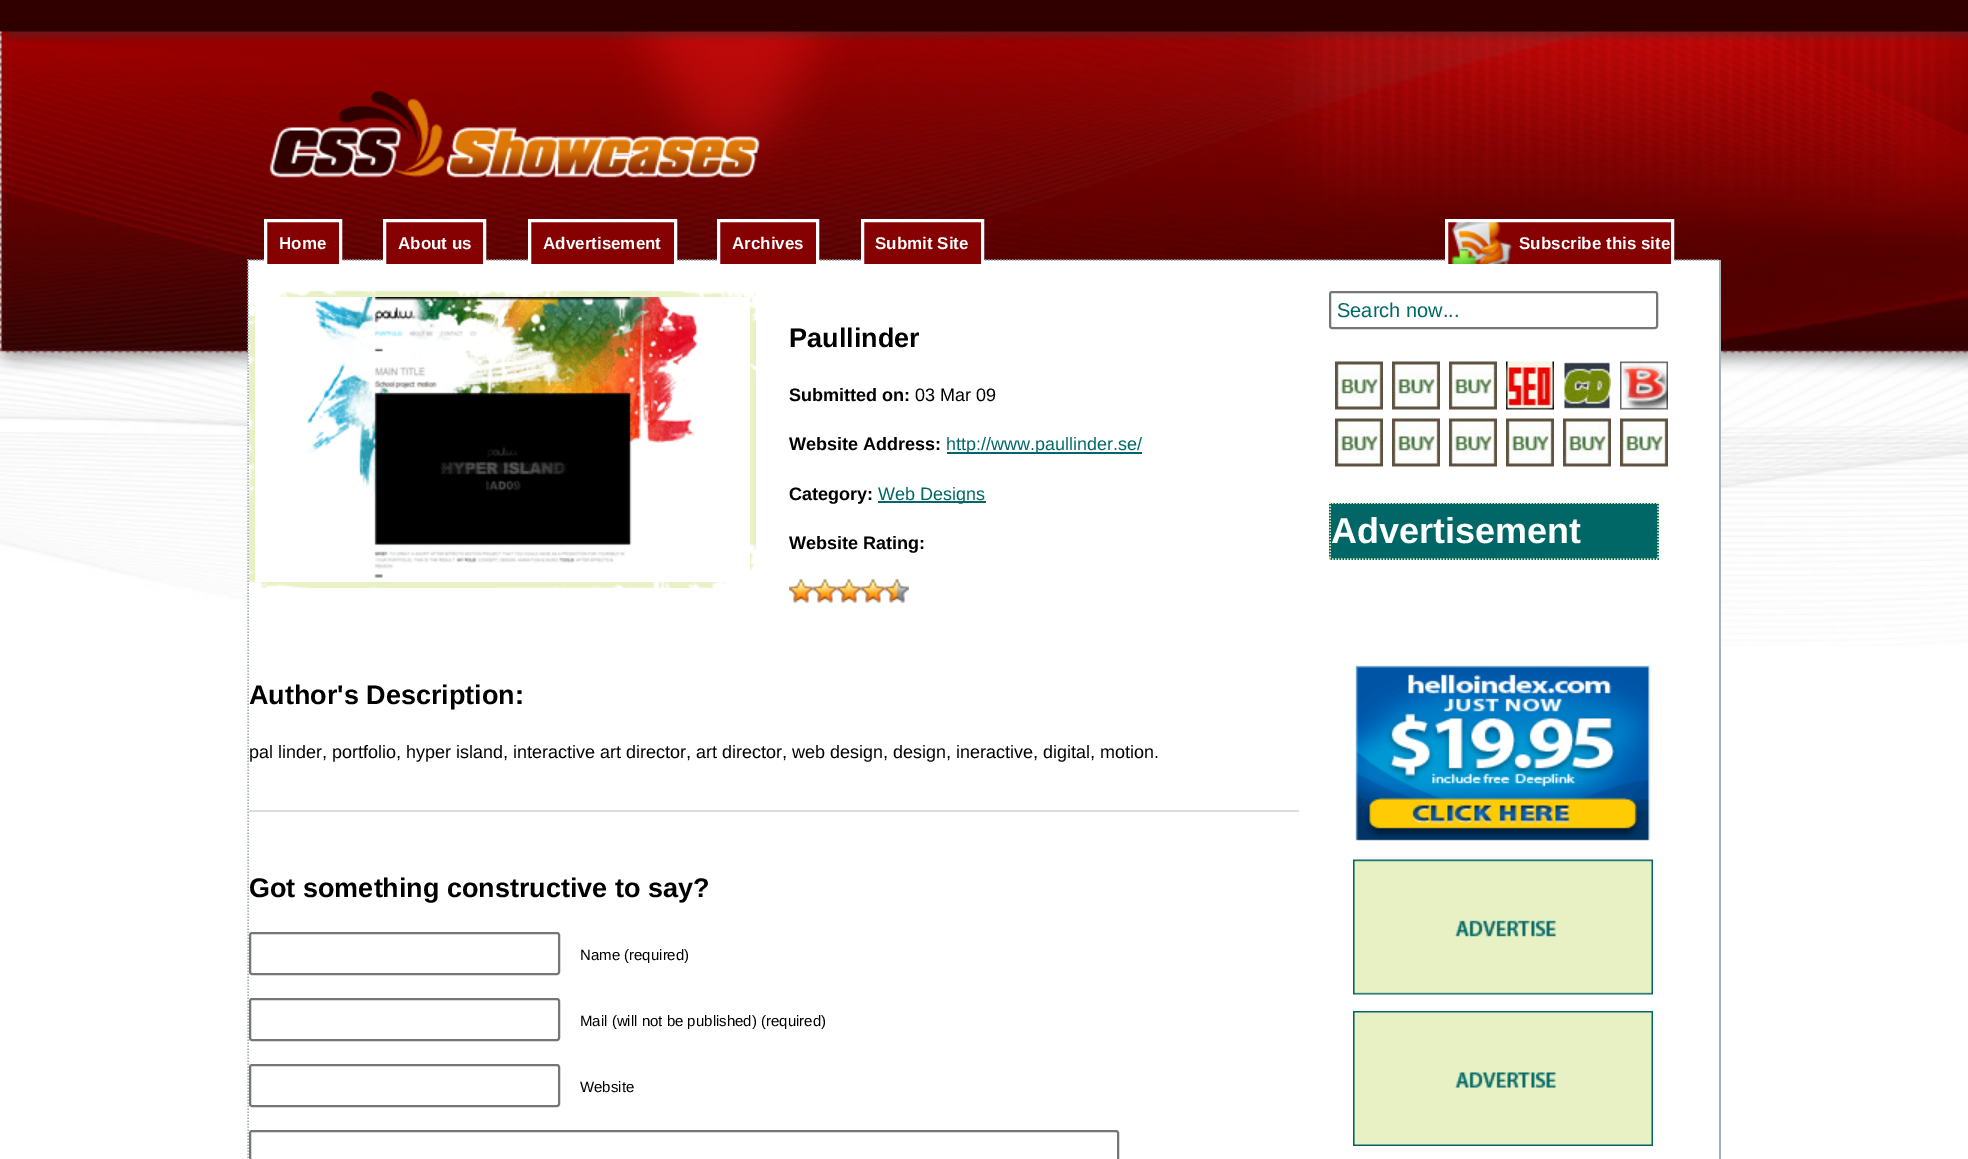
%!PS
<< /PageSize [1968 1159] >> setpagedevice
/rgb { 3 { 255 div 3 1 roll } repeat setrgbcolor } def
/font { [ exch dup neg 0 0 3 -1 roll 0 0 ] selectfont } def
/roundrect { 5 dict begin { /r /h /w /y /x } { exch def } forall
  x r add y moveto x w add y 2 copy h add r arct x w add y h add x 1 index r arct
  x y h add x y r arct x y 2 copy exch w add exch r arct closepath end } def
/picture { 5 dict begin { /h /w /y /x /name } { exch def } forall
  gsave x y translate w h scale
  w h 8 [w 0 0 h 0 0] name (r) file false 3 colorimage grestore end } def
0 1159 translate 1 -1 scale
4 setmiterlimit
255 255 255 rgb
0 0 1968 1159 rectfill
(img/1.rgb) 0 0 1968 646 picture
(img/2.rgb) 269 91 491 87 picture
248 260 1471 386 rectfill
166 179 185 rgb
1.5 setlinewidth
[1.5 1.5] 0 setdash
247.5 260 moveto 1720.5 260 lineto stroke
134 1 2 rgb
265.5 220.5 moveto 340.5 220.5 lineto 340.5 265.5 lineto 265.5 265.5 lineto closepath gsave fill grestore
255 255 255 rgb
3 setlinewidth
[] 0 setdash
stroke
134 1 2 rgb
384.5 220.5 moveto 484.5 220.5 lineto 484.5 265.5 lineto 384.5 265.5 lineto closepath gsave fill grestore
255 255 255 rgb
stroke
134 1 2 rgb
529.5 220.5 moveto 675.5 220.5 lineto 675.5 265.5 lineto 529.5 265.5 lineto closepath gsave fill grestore
255 255 255 rgb
stroke
134 1 2 rgb
718.5 220.5 moveto 817.5 220.5 lineto 817.5 265.5 lineto 718.5 265.5 lineto closepath gsave fill grestore
255 255 255 rgb
stroke
134 1 2 rgb
862.5 220.5 moveto 982.5 220.5 lineto 982.5 265.5 lineto 862.5 265.5 lineto closepath gsave fill grestore
255 255 255 rgb
stroke
134 1 2 rgb
1448 222 223 42 rectfill
(img/3.rgb) 1451 222 62 42 picture
255 255 255 rgb
1446.5 220.5 226 45 rectstroke
166 179 185 rgb
1719 260 2 899 rectfill
1.5 setlinewidth
[1.5 1.5] 0 setdash
248 259.5 moveto 248 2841 lineto stroke
(img/4.rgb) 249 291 507 297 picture
(img/5.rgb) 255 297 495 285 picture
0 102 102 rgb
947 452 195 2 rectfill
878 501 108 2 rectfill
(img/6.rgb) 789 579 24 24 picture
(img/6.rgb) 813 579 24 24 picture
(img/6.rgb) 837 579 24 24 picture
(img/6.rgb) 861 579 24 24 picture
(img/7.rgb) 885 579 24 24 picture
221 221 221 rgb
249 810 1050 2 rectfill
118 118 118 rgb
2 setlinewidth
[] 0 setdash
250 933 309 41 2 roundrect stroke
250 999 309 41 2 roundrect stroke
250 1065 309 41 2 roundrect stroke
250 1131 868 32 2 roundrect stroke
1330 292 327 36 2 roundrect stroke
(img/8.rgb) 1335 361 48 49 picture
(img/9.rgb) 1392 361 48 49 picture
(img/9.rgb) 1449 361 48 49 picture
(img/10.rgb) 1506 361 48 49 picture
(img/11.rgb) 1563 361 48 49 picture
(img/12.rgb) 1620 361 48 49 picture
(img/8.rgb) 1335 418 48 49 picture
(img/9.rgb) 1392 418 48 49 picture
(img/9.rgb) 1449 418 48 49 picture
(img/13.rgb) 1506 418 48 49 picture
(img/9.rgb) 1563 418 48 49 picture
(img/9.rgb) 1620 418 48 49 picture
0 102 102 rgb
1329 503 330 57 rectfill
231 241 195 rgb
1.5 setlinewidth
[1.5 1.5] 0 setdash
1329 503 moveto 1659 503 lineto stroke
1658 502.5 moveto 1658 559.5 lineto stroke
1329 559 moveto 1659 559 lineto stroke
1330 502.5 moveto 1330 559.5 lineto stroke
(img/14.rgb) 1355 665 296 176 picture
(img/15.rgb) 1353 859 300 136 picture
(img/16.rgb) 1353 1011 300 135 picture
/LiberationSans-Bold 17 font
255 255 255 rgb
[
  [(Home) 279 249]
  [(About us) 398 249]
  [(Advertisement) 543 249]
  [(Archives) 732 249]
  [(Submit Site) 875 249]
  [(Subscribe this site) 1519 249]
] { aload pop moveto show } forall
/LiberationSans-Bold 27 font
0 0 0 rgb
789 347 moveto (Paullinder) show
/LiberationSans-Bold 18 font
789 401 moveto (Submitted on:) show
/LiberationSans-Regular 18 font
915 401 moveto (03 Mar 09) show
/LiberationSans-Bold 18 font
789 450 moveto (Website Address:) show
/LiberationSans-Regular 18 font
0 102 102 rgb
946 450 moveto (http://www.paullinder.se/) show
/LiberationSans-Bold 18 font
0 0 0 rgb
789 500 moveto (Category:) show
/LiberationSans-Regular 18 font
0 102 102 rgb
878 500 moveto (Web Designs) show
/LiberationSans-Bold 18 font
0 0 0 rgb
789 549 moveto (Website Rating:) show
/LiberationSans-Bold 27 font
249 704 moveto (Author's Description:) show
/LiberationSans-Regular 18 font
249 758 moveto (pal linder, portfolio, hyper island, interactive art director, art director, web design, design, ineractive, digital, motion.) show
/LiberationSans-Bold 27 font
249 897 moveto (Got something constructive to say?) show
/LiberationSans-Regular 15 font
[
  [(Name \(required\)) 580 960]
  [(Mail \(will not be published\) \(required\)) 580 1026]
  [(Website) 580 1092]
] { aload pop moveto show } forall
/LiberationSans-Regular 20 font
0 102 102 rgb
1337 317 moveto (Search now...) show
/LiberationSans-Bold 36 font
255 255 255 rgb
1331 543 moveto (Advertisement) show
showpage
